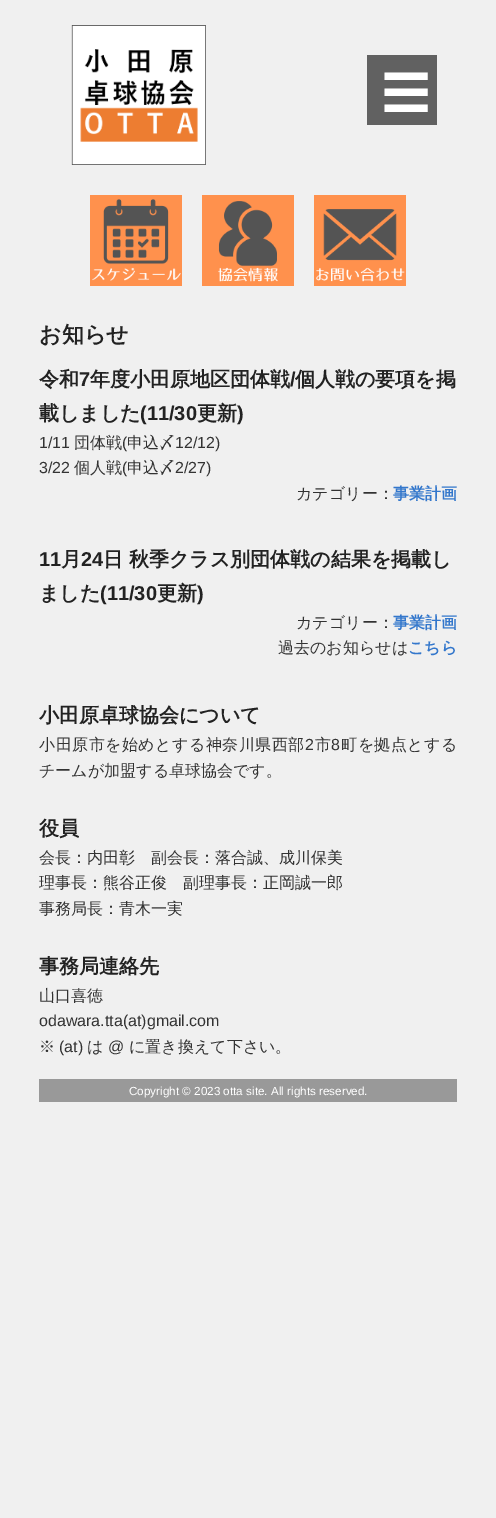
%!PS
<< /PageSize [496 1518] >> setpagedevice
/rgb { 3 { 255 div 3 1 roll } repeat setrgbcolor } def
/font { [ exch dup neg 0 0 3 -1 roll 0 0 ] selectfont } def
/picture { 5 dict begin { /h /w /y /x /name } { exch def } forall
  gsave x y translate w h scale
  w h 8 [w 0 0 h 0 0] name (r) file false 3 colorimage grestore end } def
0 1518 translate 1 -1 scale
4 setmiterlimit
240 240 240 rgb
0 0 496 1518 rectfill
(img/1.rgb) 71 25 135 140 picture
97 97 97 rgb
367 55 70 70 rectfill
(img/2.rgb) 90 195 92 91 picture
(img/3.rgb) 202 195 92 91 picture
(img/4.rgb) 314 195 92 91 picture
153 153 153 rgb
39 1079 418 23 rectfill
/WenQuanYiZenHei-Medium 48 font
255 255 255 rgb
382 110 moveto (☰) show
/WenQuanYiZenHei-Bold 22 font
34 34 34 rgb
39 342 moveto (お知らせ) show
/WenQuanYiZenHei-Bold 20 font
39 386 moveto (令和) show
/LiberationSans-Bold 20 font
79 386 moveto (7) show
/WenQuanYiZenHei-Bold 20 font
90 386 moveto (年度小田原地区団体戦) show
/LiberationSans-Bold 20 font
290 386 moveto (/) show
/WenQuanYiZenHei-Bold 20 font
295 386 moveto (個人戦の要項を掲) show
39 420 moveto (載しました) show
/LiberationSans-Bold 20 font
140 420 moveto (\(11/30) show
/WenQuanYiZenHei-Bold 20 font
197 420 moveto (更新) show
/LiberationSans-Bold 20 font
237 420 moveto (\)) show
/LiberationSans-Regular 16 font
51 51 51 rgb
39 448 moveto (1/11) show
/WenQuanYiZenHei-Medium 16 font
74 448 moveto (団体戦) show
/LiberationSans-Regular 16 font
122 448 moveto (\() show
/WenQuanYiZenHei-Medium 16 font
127 448 moveto (申込〆) show
/LiberationSans-Regular 16 font
175 448 moveto (12/12\)) show
39 473 moveto (3/22) show
/WenQuanYiZenHei-Medium 16 font
74 473 moveto (個人戦) show
/LiberationSans-Regular 16 font
122 473 moveto (\() show
/WenQuanYiZenHei-Medium 16 font
127 473 moveto (申込〆) show
/LiberationSans-Regular 16 font
175 473 moveto (2/27\)) show
/WenQuanYiZenHei-Medium 16 font
296 499 moveto (カテゴリー：) show
/WenQuanYiZenHei-Bold 16 font
51 119 204 rgb
393 499 moveto (事業計画) show
/LiberationSans-Bold 20 font
34 34 34 rgb
39 566 moveto (11) show
/WenQuanYiZenHei-Bold 20 font
61 566 moveto (月) show
/LiberationSans-Bold 20 font
81 566 moveto (24) show
/WenQuanYiZenHei-Bold 20 font
103 566 moveto (日 秋季クラス別団体戦の結果を掲載し) show
39 600 moveto (ました) show
/LiberationSans-Bold 20 font
100 600 moveto (\(11/30) show
/WenQuanYiZenHei-Bold 20 font
157 600 moveto (更新) show
/LiberationSans-Bold 20 font
197 600 moveto (\)) show
/WenQuanYiZenHei-Medium 16 font
51 51 51 rgb
296 628 moveto (カテゴリー：) show
/WenQuanYiZenHei-Bold 16 font
51 119 204 rgb
393 628 moveto (事業計画) show
/WenQuanYiZenHei-Medium 16 font
51 51 51 rgb
278 653 moveto (過去のお知らせは) show
/WenQuanYiZenHei-Bold 16 font
51 119 204 rgb
408 653 moveto (こちら) show
/WenQuanYiZenHei-Bold 20 font
34 34 34 rgb
39 722 moveto (小田原卓球協会について) show
/WenQuanYiZenHei-Medium 16 font
51 51 51 rgb
39 750 moveto 0.5 0 (小田原市を始めとする神奈川県西部) ashow
/LiberationSans-Regular 16 font
305 750 moveto 0.5 0 (2) ashow
/WenQuanYiZenHei-Medium 16 font
315 750 moveto 0.5 0 (市) ashow
/LiberationSans-Regular 16 font
331 750 moveto 0.5 0 (8) ashow
/WenQuanYiZenHei-Medium 16 font
341 750 moveto 0.5 0 (町を拠点とする) ashow
39 776 moveto (チームが加盟する卓球協会です。) show
/WenQuanYiZenHei-Bold 20 font
34 34 34 rgb
39 835 moveto (役員) show
/WenQuanYiZenHei-Medium 16 font
51 51 51 rgb
[
  [(会長：内田彰　副会長：落合誠、成川保美) 39 863]
  [(理事長：熊谷正俊　副理事長：正岡誠一郎) 39 888]
  [(事務局長：青木一実) 39 914]
] { aload pop moveto show } forall
/WenQuanYiZenHei-Bold 20 font
34 34 34 rgb
39 973 moveto (事務局連絡先) show
/WenQuanYiZenHei-Medium 16 font
51 51 51 rgb
39 1001 moveto (山口喜徳) show
/LiberationSans-Regular 16 font
39 1026 moveto (odawara.tta\(at\)gmail.com) show
/WenQuanYiZenHei-Medium 16 font
39 1052 moveto (※) show
/LiberationSans-Regular 16 font
59 1052 moveto (\(at\)) show
/WenQuanYiZenHei-Medium 16 font
87 1052 moveto (は) show
/LiberationSans-Regular 16 font
108 1052 moveto (@) show
/WenQuanYiZenHei-Medium 16 font
129 1052 moveto (に置き換えて下さい。) show
/LiberationSans-Regular 11.7 font
255 255 255 rgb
129 1095 moveto (Copyright © 2023 otta site. All rights reserved.) show
showpage
